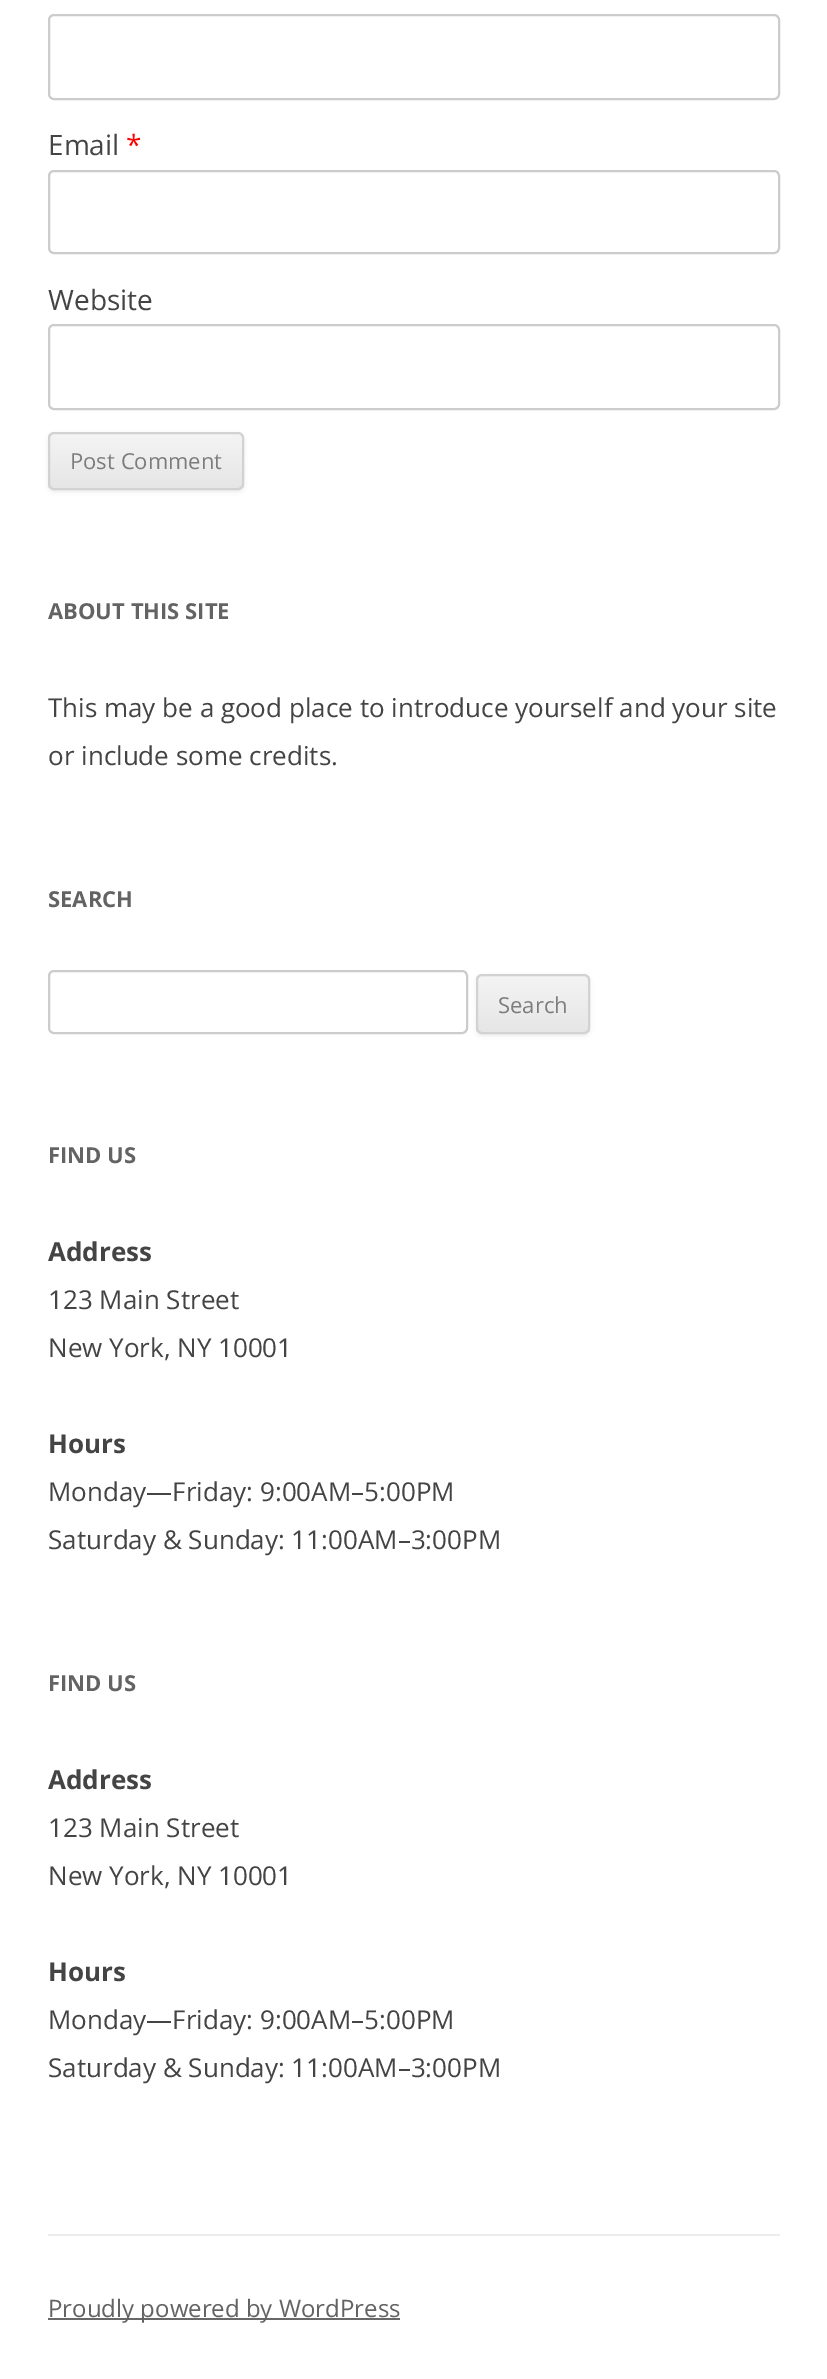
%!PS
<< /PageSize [827 2379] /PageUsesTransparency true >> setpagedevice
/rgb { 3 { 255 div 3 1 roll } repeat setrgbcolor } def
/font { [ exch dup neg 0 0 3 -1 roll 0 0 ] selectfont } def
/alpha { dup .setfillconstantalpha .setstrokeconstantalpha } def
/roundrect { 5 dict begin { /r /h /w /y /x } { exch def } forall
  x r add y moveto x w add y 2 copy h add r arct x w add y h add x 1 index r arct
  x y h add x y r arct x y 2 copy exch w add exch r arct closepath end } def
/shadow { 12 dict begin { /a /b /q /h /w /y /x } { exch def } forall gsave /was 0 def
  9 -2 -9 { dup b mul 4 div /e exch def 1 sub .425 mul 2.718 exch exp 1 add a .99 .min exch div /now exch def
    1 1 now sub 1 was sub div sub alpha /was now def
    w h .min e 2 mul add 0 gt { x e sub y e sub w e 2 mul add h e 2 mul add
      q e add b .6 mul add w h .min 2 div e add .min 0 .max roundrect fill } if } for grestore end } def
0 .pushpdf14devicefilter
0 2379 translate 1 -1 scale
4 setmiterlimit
255 255 255 rgb
0 0 827 2379 rectfill
204 204 204 rgb
2 setlinewidth
49 15 730 84 5 roundrect stroke
49 171 730 82 5 roundrect stroke
49 325 730 84 5 roundrect stroke
64 64 64 rgb
48 434 196 58 6 2 0.1 shadow
gsave
48 432 196 58 6 roundrect clip newpath
gsave 48 434 moveto 244 434 lineto 244 488 lineto 48 488 lineto closepath clip newpath
<< /ShadingType 2 /ColorSpace /DeviceRGB /Coords [146 434 146 488] /Extend [true true] /Function << /FunctionType 2 /Domain [0 1] /C0 [0.957 0.957 0.957] /C1 [0.902 0.902 0.902] /N 1 >> >> shfill grestore
grestore
210 210 210 rgb
49 433 194 56 5 roundrect stroke
204 204 204 rgb
49 971 418 62 5 roundrect stroke
64 64 64 rgb
476 976 114 60 6 2 0.1 shadow
gsave
476 974 114 60 6 roundrect clip newpath
gsave 476 976 moveto 590 976 lineto 590 1032 lineto 476 1032 lineto closepath clip newpath
<< /ShadingType 2 /ColorSpace /DeviceRGB /Coords [533 976 533 1032] /Extend [true true] /Function << /FunctionType 2 /Domain [0 1] /C0 [0.957 0.957 0.957] /C1 [0.902 0.902 0.902] /N 1 >> >> shfill grestore
grestore
210 210 210 rgb
477 975 112 58 5 roundrect stroke
237 237 237 rgb
48 2234 732 2 rectfill
104 104 104 rgb
48 2318 352 2 rectfill
/OpenSans-Regular 28 font
68 68 68 rgb
48 155 moveto (Email) show
255 0 0 rgb
126 155 moveto (*) show
68 68 68 rgb
48 310 moveto (Website) show
/OpenSans-Regular 22 font
124 124 124 rgb
70 469 moveto (Post Comment) show
/OpenSans-Bold 22 font
99 99 99 rgb
48 619 moveto (ABOUT THIS SITE) show
/OpenSans-Regular 26 font
68 68 68 rgb
48 717 moveto (This may be a good place to introduce yourself and your site) show
48 765 moveto (or include some credits.) show
/OpenSans-Bold 22 font
99 99 99 rgb
48 907 moveto (SEARCH) show
/OpenSans-Regular 22 font
124 124 124 rgb
498 1013 moveto (Search) show
/OpenSans-Bold 22 font
99 99 99 rgb
48 1163 moveto (FIND US) show
/OpenSans-Bold 26 font
68 68 68 rgb
48 1261 moveto (Address) show
/OpenSans-Regular 26 font
48 1309 moveto (123 Main Street) show
48 1357 moveto (New York, NY 10001) show
/OpenSans-Bold 26 font
48 1453 moveto (Hours) show
/OpenSans-Regular 26 font
48 1501 moveto (Monday—Friday: 9:00AM–5:00PM) show
48 1549 moveto (Saturday & Sunday: 11:00AM–3:00PM) show
/OpenSans-Bold 22 font
99 99 99 rgb
48 1691 moveto (FIND US) show
/OpenSans-Bold 26 font
68 68 68 rgb
48 1789 moveto (Address) show
/OpenSans-Regular 26 font
48 1837 moveto (123 Main Street) show
48 1885 moveto (New York, NY 10001) show
/OpenSans-Bold 26 font
48 1981 moveto (Hours) show
/OpenSans-Regular 26 font
48 2029 moveto (Monday—Friday: 9:00AM–5:00PM) show
48 2077 moveto (Saturday & Sunday: 11:00AM–3:00PM) show
/OpenSans-Regular 24 font
99 99 99 rgb
48 2317 moveto (Proudly powered by WordPress) show
.poppdf14devicefilter showpage
